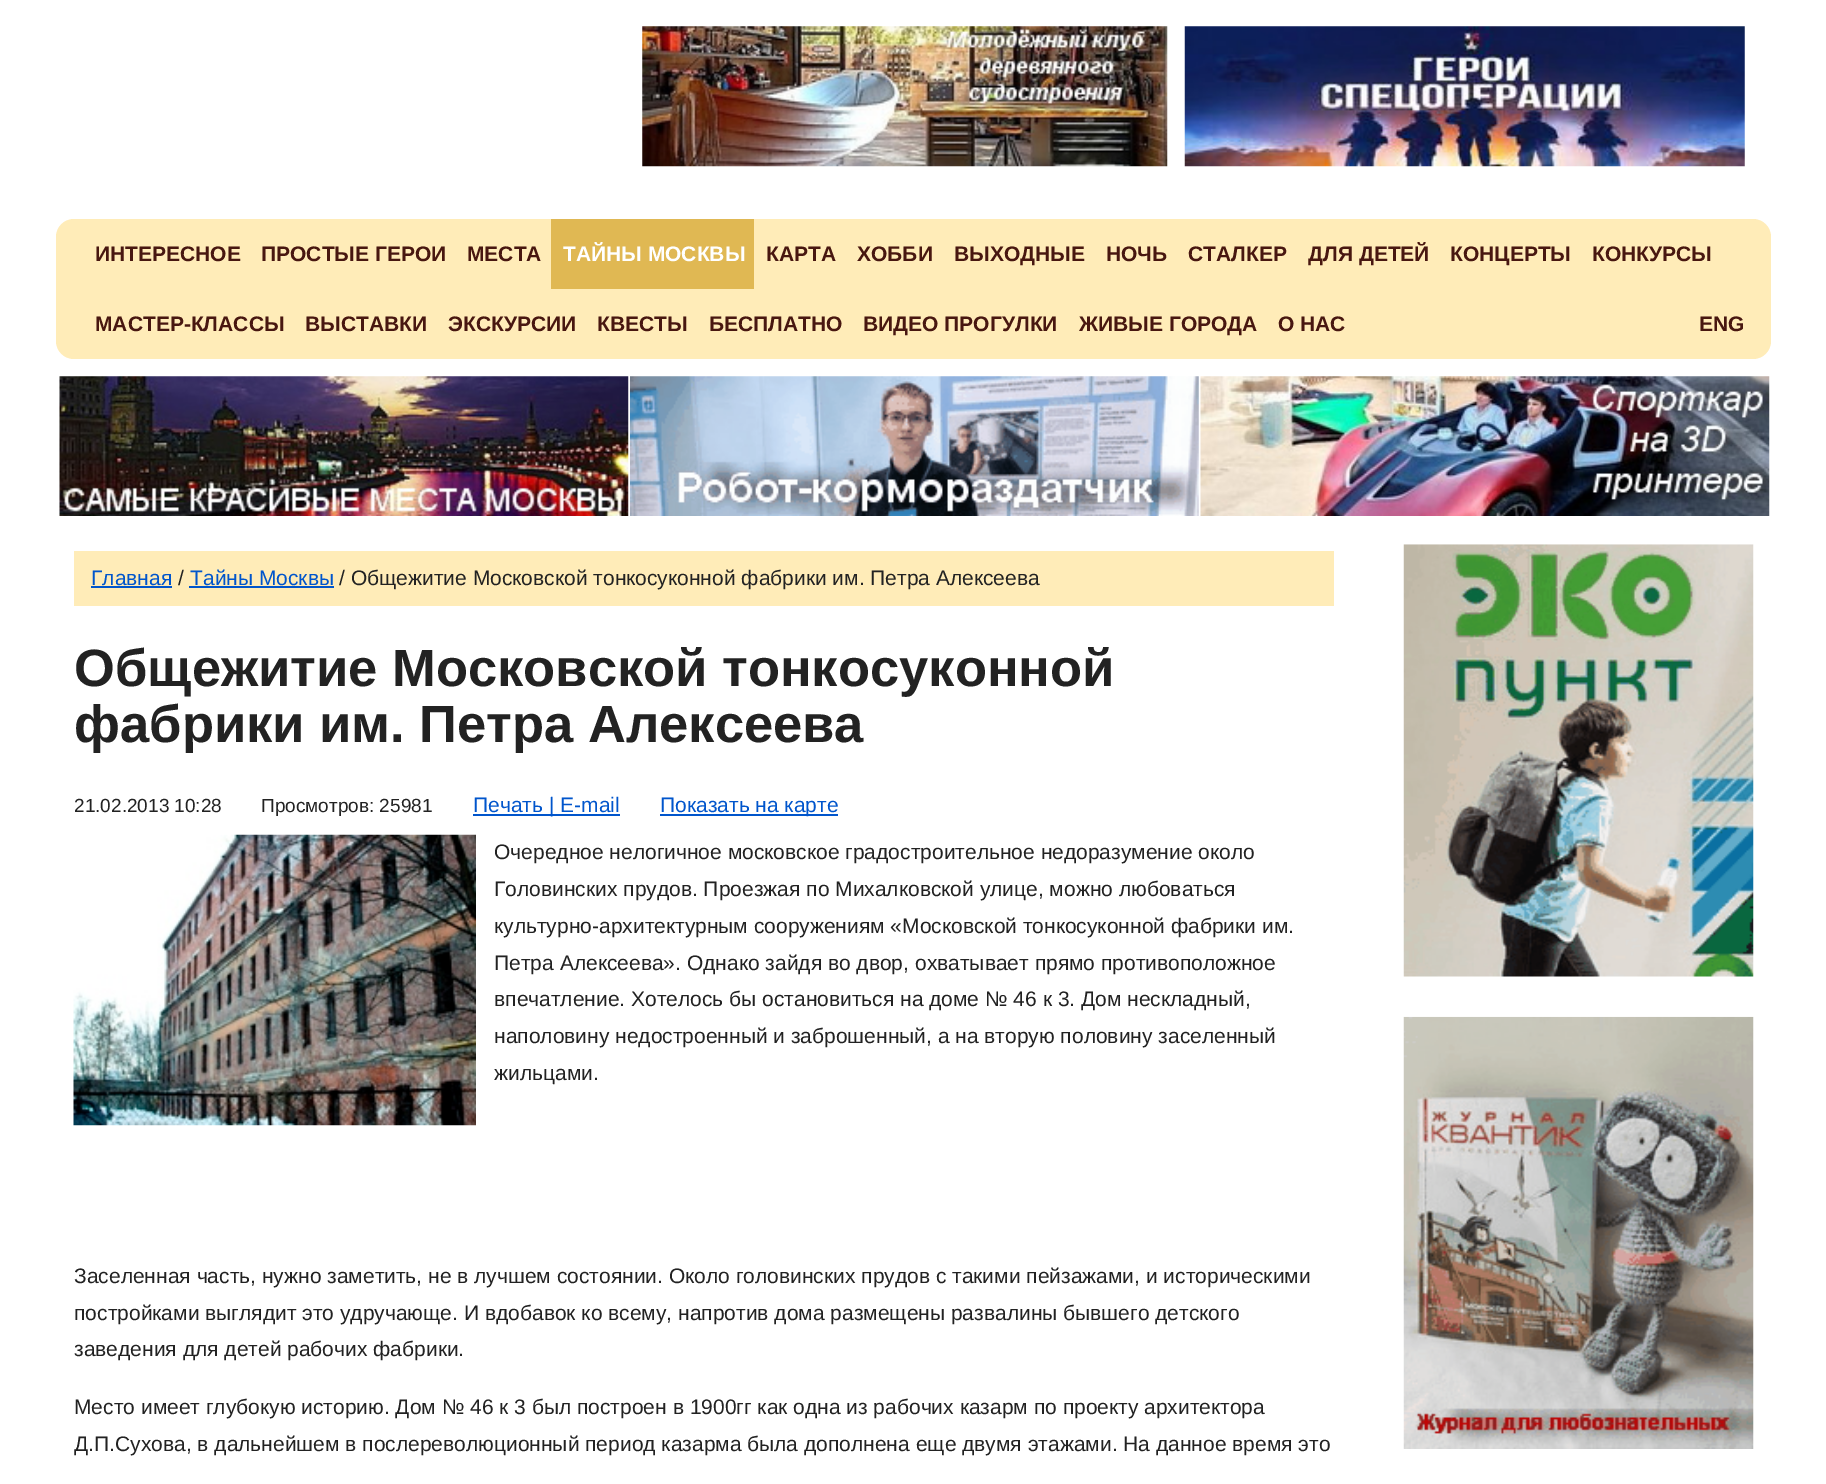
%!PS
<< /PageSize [1826 1484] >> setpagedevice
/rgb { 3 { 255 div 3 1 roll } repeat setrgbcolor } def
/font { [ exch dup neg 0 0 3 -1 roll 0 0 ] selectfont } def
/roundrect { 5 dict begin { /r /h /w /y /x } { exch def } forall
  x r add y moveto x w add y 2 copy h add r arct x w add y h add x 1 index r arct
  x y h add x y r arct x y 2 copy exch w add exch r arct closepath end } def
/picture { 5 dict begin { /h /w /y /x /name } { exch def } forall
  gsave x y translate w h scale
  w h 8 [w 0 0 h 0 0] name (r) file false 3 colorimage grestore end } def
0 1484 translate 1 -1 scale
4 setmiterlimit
255 255 255 rgb
0 0 1826 1484 rectfill
(img/1.rgb) 642 26 526 141 picture
(img/2.rgb) 1184 26 561 141 picture
255 236 184 rgb
56 219 1715 140 18 roundrect fill
224 184 83 rgb
551 219 203 70 rectfill
(img/3.rgb) 59 376 570 140 picture
(img/4.rgb) 630 376 569 140 picture
(img/5.rgb) 1200 376 570 140 picture
[
  [74 551 1260 55 255 236 184]
  [91 586 81 2 0 85 204]
  [189 586 145 2 0 85 204]
  [473 814 147 2 0 85 204]
  [660 814 178 2 0 85 204]
] { aload pop rgb rectfill } forall
(img/6.rgb) 73 834 403 292 picture
(img/7.rgb) 1403 544 351 433 picture
(img/8.rgb) 1403 1016 351 433 picture
/LiberationSans-Bold 21 font
72 23 16 rgb
[
  [(ИНТЕРЕСНОЕ) 95 261]
  [(ПРОСТЫЕ ГЕРОИ) 261 261]
  [(МЕСТА) 467 261]
] { aload pop moveto show } forall
255 255 255 rgb
563 261 moveto (ТАЙНЫ МОСКВЫ) show
72 23 16 rgb
[
  [(КАРТА) 766 261]
  [(ХОББИ) 857 261]
  [(ВЫХОДНЫЕ) 954 261]
  [(НОЧЬ) 1106 261]
  [(СТАЛКЕР) 1188 261]
  [(ДЛЯ ДЕТЕЙ) 1308 261]
  [(КОНЦЕРТЫ) 1450 261]
  [(КОНКУРСЫ) 1592 261]
  [(МАСТЕР-КЛАССЫ) 95 331]
  [(ВЫСТАВКИ) 305 331]
  [(ЭКСКУРСИИ) 448 331]
  [(КВЕСТЫ) 597 331]
  [(БЕСПЛАТНО) 709 331]
  [(ВИДЕО ПРОГУЛКИ) 863 331]
  [(ЖИВЫЕ ГОРОДА) 1079 331]
  [(О НАС) 1278 331]
  [(ENG) 1699 331]
] { aload pop moveto show } forall
/LiberationSans-Regular 21 font
0 85 204 rgb
91 585 moveto (Главная) show
34 34 34 rgb
178 585 moveto (/) show
0 85 204 rgb
190 585 moveto (Тайны Москвы) show
34 34 34 rgb
339 585 moveto (/ Общежитие Московской тонкосуконной фабрики им. Петра Алексеева) show
/LiberationSans-Bold 52.5 font
74 686 moveto (Общежитие Московской тонкосуконной) show
74 742 moveto (фабрики им. Петра Алексеева) show
/LiberationSans-Regular 19 font
74 812 moveto (21.02.2013 10:28) show
261 812 moveto (Просмотров: 25981) show
/LiberationSans-Regular 21 font
0 85 204 rgb
473 812 moveto (Печать | E-mail) show
660 812 moveto (Показать на карте) show
34 34 34 rgb
[
  [(Очередное нелогичное московское градостроительное недоразумение около) 494 859]
  [(Головинских прудов. Проезжая по Михалковской улице, можно любоваться) 494 896]
  [(культурно-архитектурным сооружениям «Московской тонкосуконной фабрики им.) 494 933]
  [(Петра Алексеева». Однако зайдя во двор, охватывает прямо противоположное) 494 970]
  [(впечатление. Хотелось бы остановиться на доме № 46 к 3. Дом нескладный,) 494 1006]
  [(наполовину недостроенный и заброшенный, а на вторую половину заселенный) 494 1043]
  [(жильцами.) 494 1080]
  [(Заселенная часть, нужно заметить, не в лучшем состоянии. Около головинских прудов с такими пейзажами, и историческими) 74 1283]
  [(постройками выглядит это удручающе. И вдобавок ко всему, напротив дома размещены развалины бывшего детского) 74 1320]
  [(заведения для детей рабочих фабрики.) 74 1356]
  [(Место имеет глубокую историю. Дом № 46 к 3 был построен в 1900гг как одна из рабочих казарм по проекту архитектора) 74 1414]
  [(Д.П.Сухова, в дальнейшем в послереволюционный период казарма была дополнена еще двумя этажами. На данное время это) 74 1451]
] { aload pop moveto show } forall
showpage
